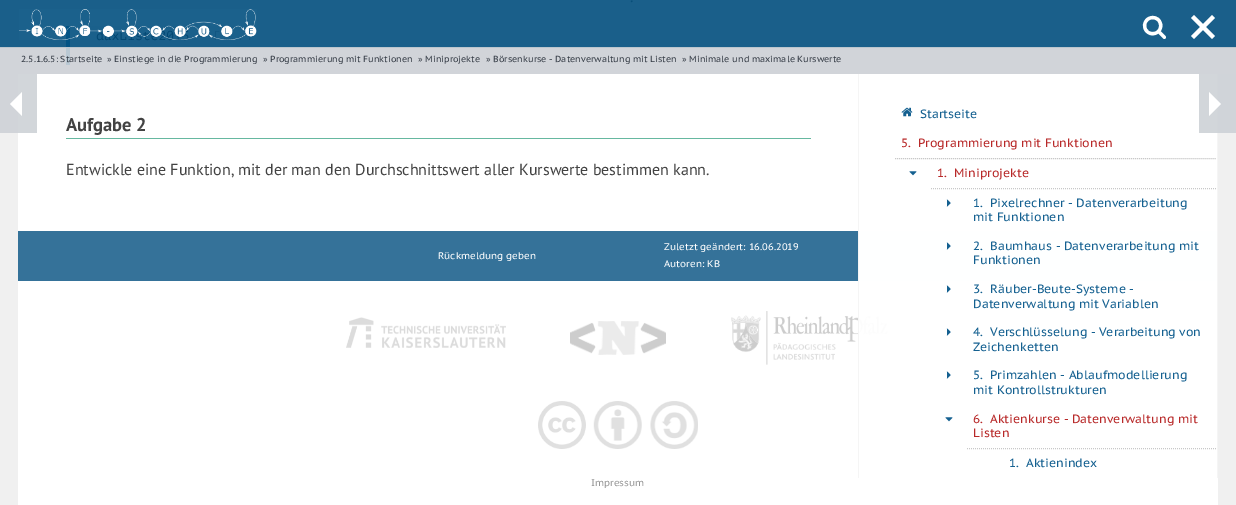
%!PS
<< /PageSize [1236 505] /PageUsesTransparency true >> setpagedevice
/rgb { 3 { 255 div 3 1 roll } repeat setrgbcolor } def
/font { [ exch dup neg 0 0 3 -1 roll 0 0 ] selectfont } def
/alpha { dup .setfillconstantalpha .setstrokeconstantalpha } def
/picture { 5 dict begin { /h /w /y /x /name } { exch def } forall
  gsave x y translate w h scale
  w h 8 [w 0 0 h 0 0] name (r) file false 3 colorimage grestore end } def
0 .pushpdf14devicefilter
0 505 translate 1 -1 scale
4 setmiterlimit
240 240 240 rgb
0 0 1236 505 rectfill
[
  [0 74 18 59 209 212 217]
  [0 48 1236 26 209 212 217]
  [0 0 1236 47 26 95 138]
  [0 47 1236 1 187 198 206]
  [18 74 1199 157 255 255 255]
  [18 74 19 59 210 214 218]
  [66 47 4 18 185 200 211]
  [66 26 4 22 2 83 133]
  [66 47 4 1 185 196 206]
] { aload pop rgb rectfill } forall
255 255 255 rgb
10 104 moveto 22 92 lineto 22 116 lineto closepath fill
[
  [18 281 1200 224 255 255 255]
  [1217 74 1 404 245 245 245]
] { aload pop rgb rectfill } forall
0.9 alpha
[
  [1199 74 37 59 205 209 214]
] { aload pop rgb rectfill } forall
1 alpha
255 255 255 rgb
1209 92 moveto 1209 116 lineto 1221 104 lineto closepath fill
102 184 160 rgb
66 138 745 1 rectfill
255 255 255 rgb
1194 15 moveto 1215 36 lineto 1212 39 lineto 1191 18 lineto closepath fill
1191 36 moveto 1212 15 lineto 1215 18 lineto 1194 39 lineto closepath fill
53 114 153 rgb
18 231 1199 50 rectfill
(img/4.rgb) 731 311 157 54 picture
0.95 alpha
[
  [859 231 358 103 255 255 255]
] { aload pop rgb rectfill } forall
1 alpha
[
  [858 74 1 404 245 245 245]
] { aload pop rgb rectfill } forall
0.95 alpha
[
  [859 231 358 50 255 255 255]
] { aload pop rgb rectfill } forall
1 alpha
200 200 200 rgb
[1 1] 0 setdash
895 158.5 moveto 1217 158.5 lineto stroke
931 188.5 moveto 1217 188.5 lineto stroke
967 448.5 moveto 1217 448.5 lineto stroke
(img/2.rgb) 346 317 160 31 picture
(img/3.rgb) 570 321 96 34 picture
(img/5.rgb) 538 401 160 48 picture
/PTSans-Regular 16 font
8 78 121 rgb
630 2 moveto (.) show
/PTMono-Regular 13 font
2 71 114 rgb
96 40 moveto (daxListe2015) show
/PTSans-Bold 18.5 font
67 67 67 rgb
66 131 moveto (Aufgabe 2) show
/PTSans-Regular 16 font
66 175 moveto (Entwickle eine Funktion, mit der man den Durchschnittswert aller Kurswerte bestimmen kann.) show
/PTSansCaption-Regular 8.8 font
52 59 69 rgb
[
  [(2.5.1.6.5: Startseite) 21 62]
  [(» Einstiege in die Programmierung) 107 62]
  [(» Programmierung mit Funktionen) 263 62]
  [(» Miniprojekte) 418 62]
  [(» Börsenkurse - Datenverwaltung mit Listen) 486 62]
  [(» Minimale und maximale Kurswerte) 682 62]
] { aload pop moveto show } forall
(img/1.rgb) 19 9 238 31 picture
/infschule-Regular 25 font
255 255 255 rgb
1142 39 moveto (s) show
/infschule-Regular 12 font
20 96 144 rgb
901 118 moveto (q) show
/PTSansCaption-Regular 12 font
920 118 moveto (Startseite) show
184 41 41 rgb
901 147 moveto (5.) show
918 147 moveto (Programmierung mit Funktionen) show
/infschule-Regular 12 font
20 96 144 rgb
907 179 moveto (-) show
/PTSansCaption-Regular 12 font
184 41 41 rgb
937 177 moveto (1.) show
954 177 moveto (Miniprojekte) show
/infschule-Regular 12 font
20 96 144 rgb
943 209 moveto (+) show
/PTSansCaption-Regular 12 font
[
  [(1.) 973 207]
  [(Pixelrechner - Datenverarbeitung) 990 207]
  [(mit Funktionen) 973 221]
] { aload pop moveto show } forall
/infschule-Regular 12 font
943 252 moveto (+) show
/PTSansCaption-Regular 12 font
[
  [(2.) 973 250]
  [(Baumhaus - Datenverarbeitung mit) 990 250]
  [(Funktionen) 973 264]
] { aload pop moveto show } forall
/infschule-Regular 12 font
943 295 moveto (+) show
/PTSansCaption-Regular 12 font
[
  [(3.) 973 293]
  [(Räuber-Beute-Systeme -) 990 293]
  [(Datenverwaltung mit Variablen) 973 308]
] { aload pop moveto show } forall
/infschule-Regular 12 font
943 338 moveto (+) show
/PTSansCaption-Regular 12 font
[
  [(4.) 973 336]
  [(Verschlüsselung - Verarbeitung von) 990 336]
  [(Zeichenketten) 973 351]
] { aload pop moveto show } forall
/infschule-Regular 12 font
943 381 moveto (+) show
/PTSansCaption-Regular 12 font
[
  [(5.) 973 379]
  [(Primzahlen - Ablaufmodellierung) 990 379]
  [(mit Kontrollstrukturen) 973 394]
] { aload pop moveto show } forall
/infschule-Regular 12 font
943 425 moveto (-) show
/PTSansCaption-Regular 12 font
184 41 41 rgb
[
  [(6.) 973 423]
  [(Aktienkurse - Datenverwaltung mit) 990 423]
  [(Listen) 973 437]
] { aload pop moveto show } forall
20 96 144 rgb
1009 467 moveto (1.) show
1026 467 moveto (Aktienindex) show
/PTSansCaption-Regular 9.6 font
255 255 255 rgb
[
  [(Rückmeldung geben) 438 259]
  [(Zuletzt geändert: 16.06.2019) 664 250]
  [(Autoren: KB) 664 267]
] { aload pop moveto show } forall
150 150 150 rgb
591 486 moveto (Impressum) show
.poppdf14devicefilter showpage
